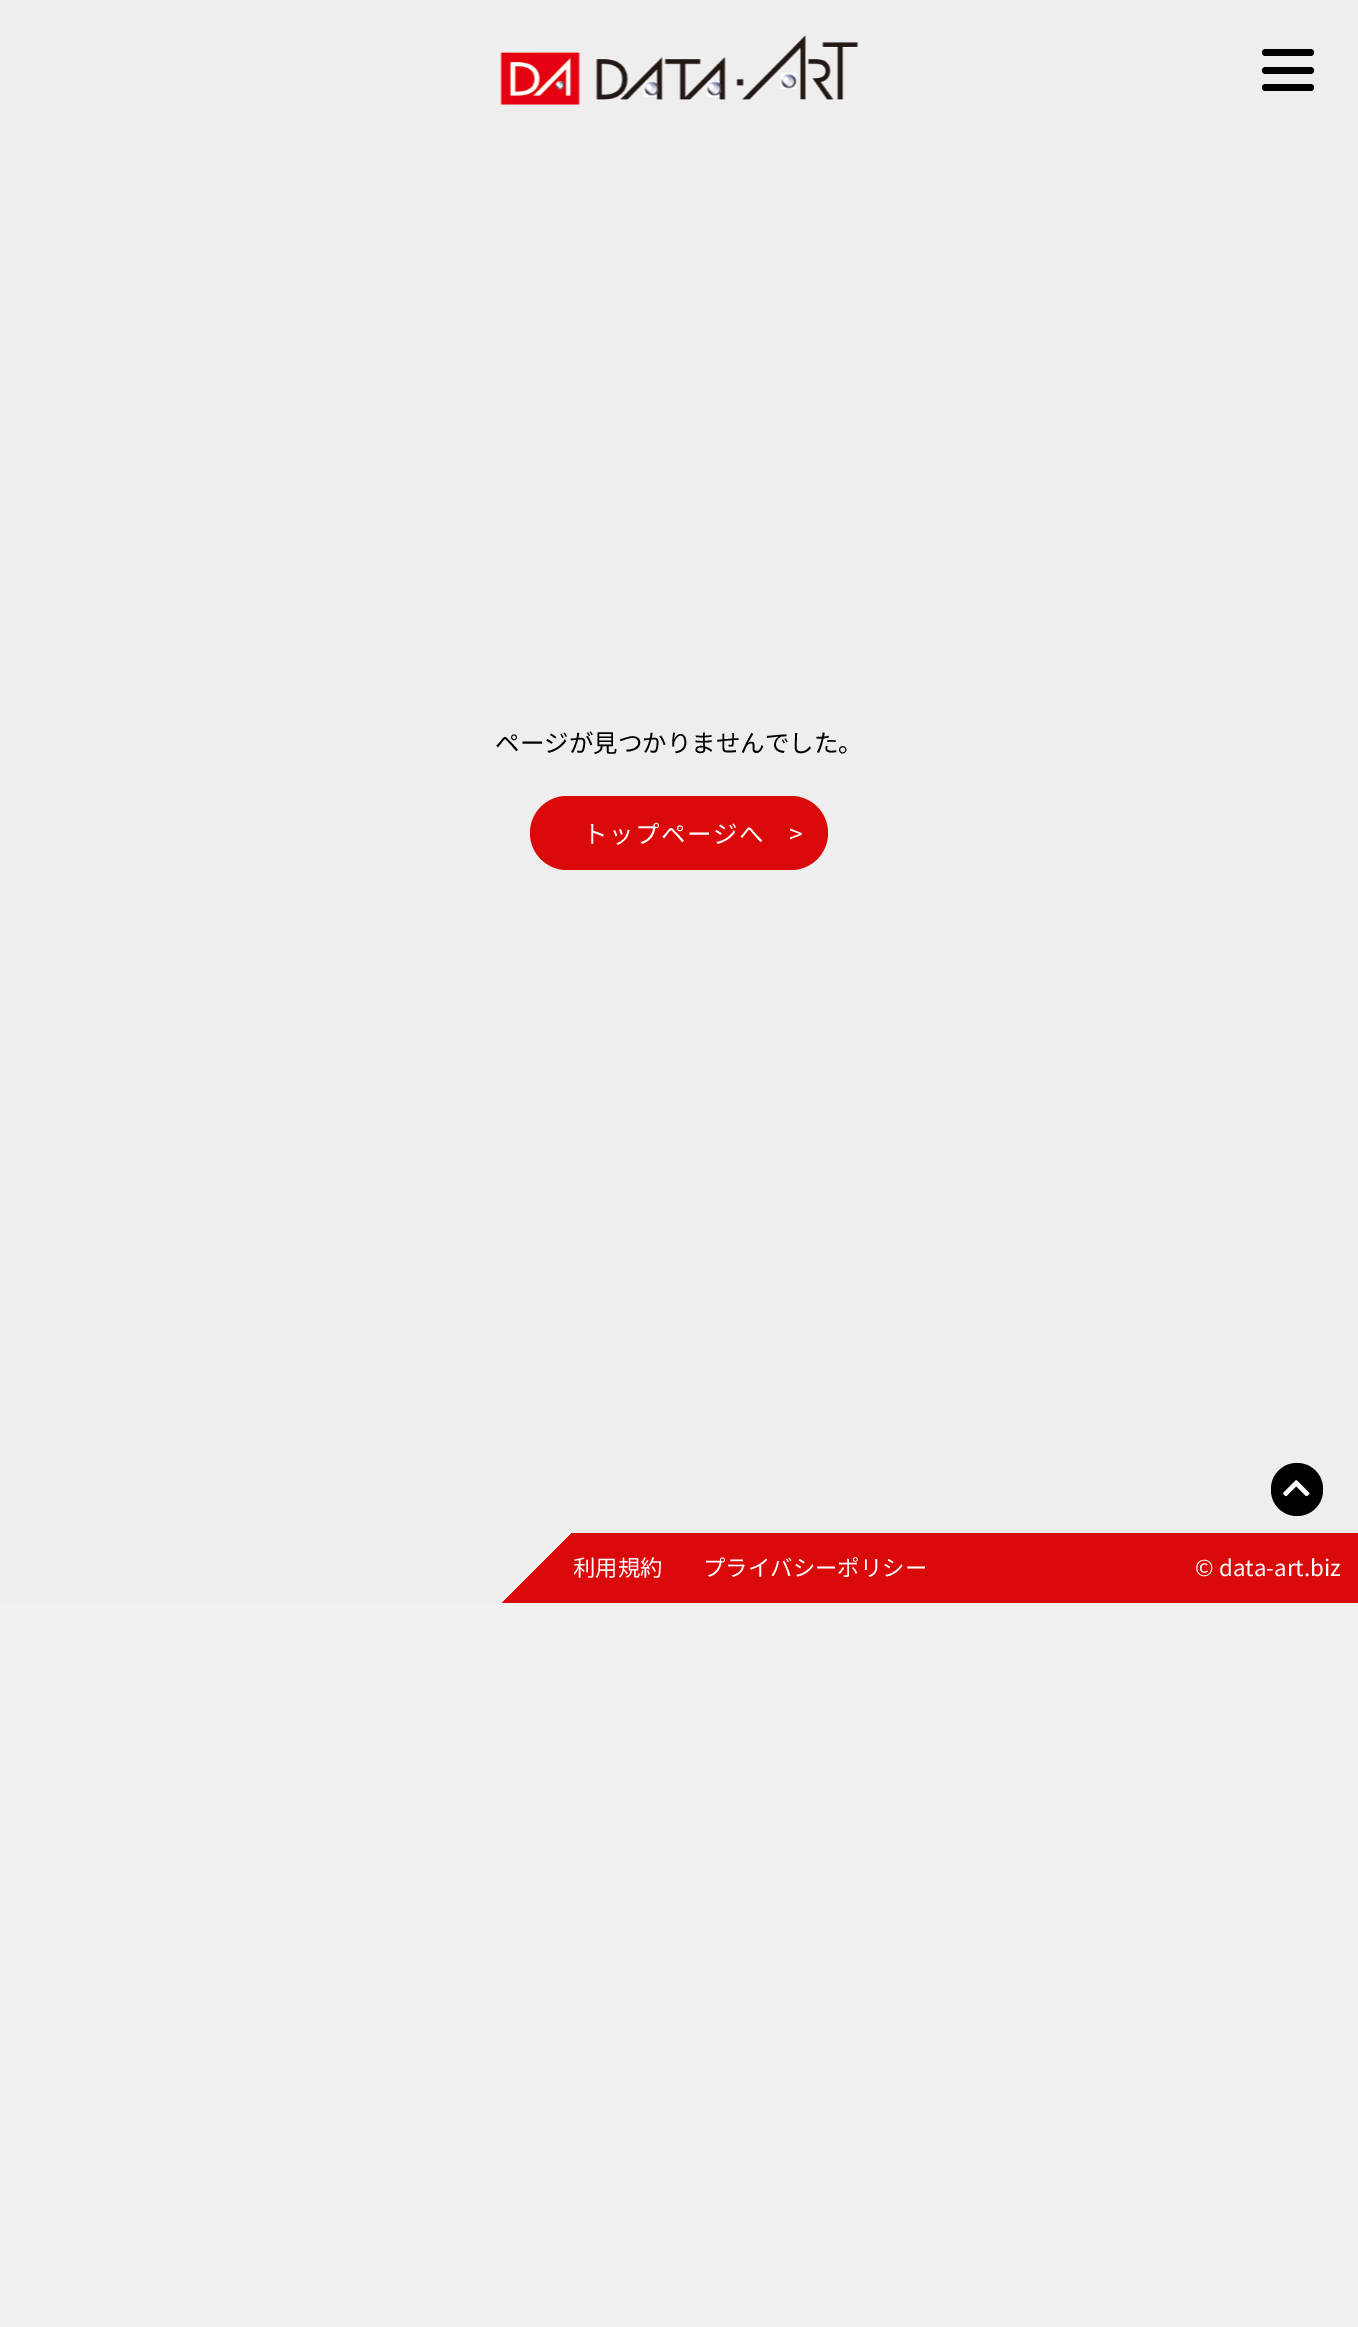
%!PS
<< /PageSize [1358 2327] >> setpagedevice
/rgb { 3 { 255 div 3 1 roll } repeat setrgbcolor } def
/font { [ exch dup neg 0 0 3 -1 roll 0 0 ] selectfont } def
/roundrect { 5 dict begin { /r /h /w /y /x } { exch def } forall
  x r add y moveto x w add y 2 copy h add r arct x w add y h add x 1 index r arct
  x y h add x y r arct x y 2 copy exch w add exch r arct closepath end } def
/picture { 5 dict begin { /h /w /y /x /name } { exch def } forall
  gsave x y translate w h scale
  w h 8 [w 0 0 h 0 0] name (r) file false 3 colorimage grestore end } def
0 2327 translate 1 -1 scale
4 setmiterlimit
241 241 241 rgb
0 0 1358 2327 rectfill
238 238 238 rgb
0 0 1358 1533 rectfill
(img/1.rgb) 500 35 359 70 picture
0 0 0 rgb
1262 49 52 7 3.5 roundrect fill
1262 67 52 7 3.5 roundrect fill
1262 84 52 7 3.5 roundrect fill
219 10 10 rgb
530 796 298 74 37 roundrect fill
gsave 0 1533 moveto 1358 1533 lineto 1358 1603 lineto 0 1603 lineto closepath clip newpath
<< /ShadingType 2 /ColorSpace /DeviceRGB /Coords [322 1211 1036 1925] /Extend [true true] /Function << /FunctionType 3 /Domain [0 1] /Functions [<< /FunctionType 2 /Domain [0 1] /C0 [0.933 0.933 0.933] /C1 [0.933 0.933 0.933] /N 1 >> << /FunctionType 2 /Domain [0 1] /C0 [0.859 0.039 0.039] /C1 [0.859 0.039 0.039] /N 1 >>] /Bounds [0.4] /Encode [0 1 0 1] >> >> shfill grestore
0 0 0 rgb
1271 1463 52 53 26 roundrect fill
(img/2.rgb) 1283 1480 27 17 picture
/NotoSansJP-Thin 24.5 font
495 752 moveto (ページが見つかりませんでした。) show
255 255 255 rgb
583 843 moveto 1.5 0 (トップページへ) ashow
789 843 moveto 1.5 0 (>) ashow
/NotoSansJP-Thin 22.4 font
[
  [(利用規約) 573 1576]
  [(プライバシーポリシー) 703 1576]
  [(© data-art.biz) 1195 1576]
] { aload pop moveto show } forall
showpage
